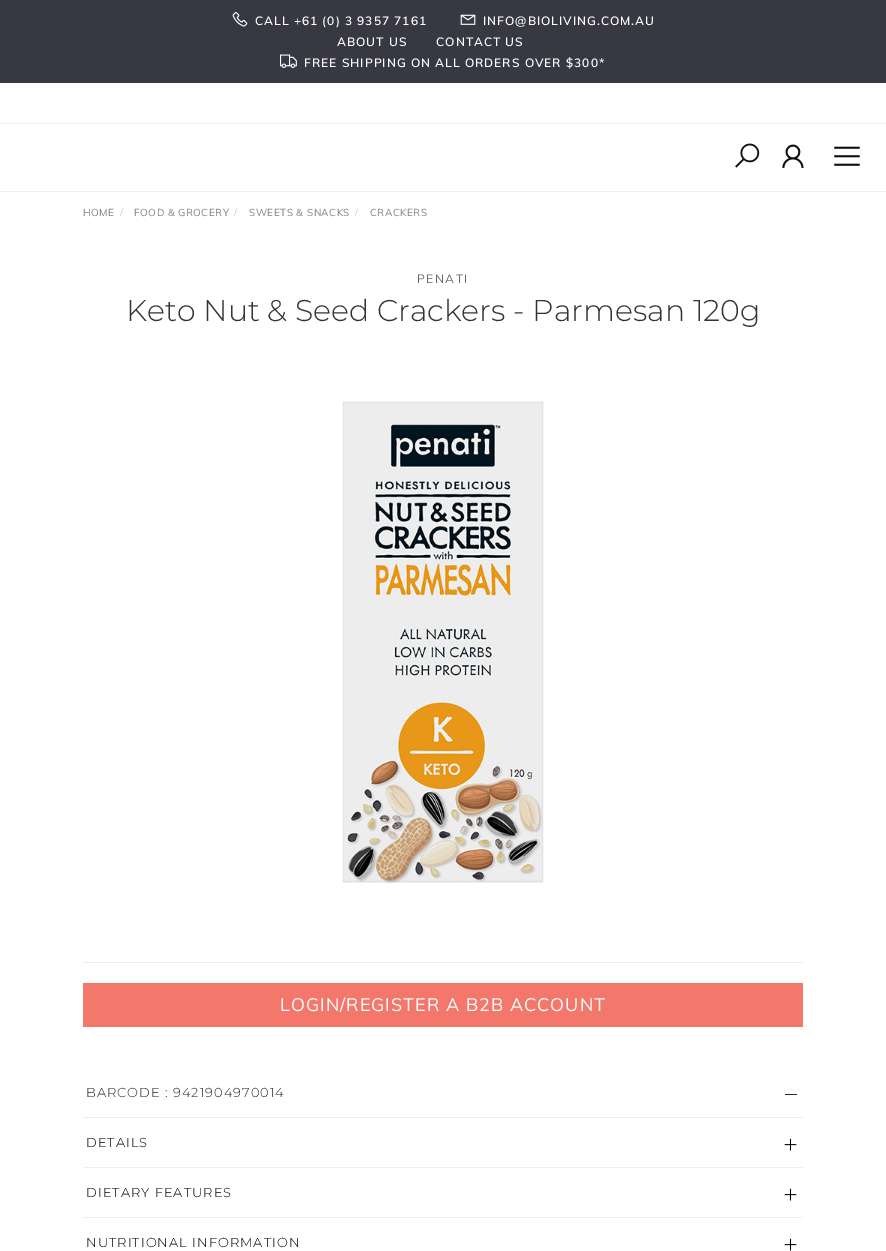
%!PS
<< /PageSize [886 1251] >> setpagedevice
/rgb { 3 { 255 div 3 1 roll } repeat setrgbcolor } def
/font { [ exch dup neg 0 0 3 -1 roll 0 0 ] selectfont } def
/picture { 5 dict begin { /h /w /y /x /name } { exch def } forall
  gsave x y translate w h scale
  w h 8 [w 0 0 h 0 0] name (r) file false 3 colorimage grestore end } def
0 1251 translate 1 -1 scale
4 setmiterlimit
255 255 255 rgb
0 0 886 1251 rectfill
55 56 66 rgb
0 0 886 83 rectfill
(img/1.rgb) 232 12 16 15 picture
(img/2.rgb) 460 14 16 11 picture
(img/3.rgb) 280 54 17 14 picture
238 238 238 rgb
0 123 886 1 rectfill
0 191 886 1 rectfill
(img/4.rgb) 735 143 25 25 picture
(img/5.rgb) 782 144 22 24 picture
(img/6.rgb) 834 146 26 20 picture
(img/7.rgb) 342 401 202 482 picture
[
  [83 962 720 1 238 238 238]
  [83 983 720 44 243 119 107]
  [785 1094 12 1 37 37 37]
  [83 1117 720 1 238 238 238]
] { aload pop rgb rectfill } forall
(img/8.rgb) 784 1138 13 13 picture
83 1167 720 1 rectfill
(img/8.rgb) 784 1188 13 13 picture
83 1217 720 1 rectfill
(img/8.rgb) 784 1238 13 13 picture
/Muli-SemiBold 12 font
255 255 255 rgb
255 25 moveto 1 0 (CALL +61 \(0\) 3 9357 7161) ashow
483 25 moveto 1 0 (INFO@BIOLIVING.COM.AU) ashow
337 46 moveto 1 0 (ABOUT US) ashow
436 46 moveto 1 0 (CONTACT US) ashow
304 67 moveto 1 0 (FREE SHIPPING ON ALL ORDERS OVER $300*) ashow
/Muli-Regular 10 font
130 130 130 rgb
83 216 moveto 0.5 0 (HOME) ashow
204 204 204 rgb
120 216 moveto 0.5 0 (/) ashow
130 130 130 rgb
134 216 moveto 0.5 0 (FOOD & GROCERY) ashow
204 204 204 rgb
234 216 moveto 0.5 0 (/) ashow
130 130 130 rgb
249 216 moveto 0.5 0 (SWEETS & SNACKS) ashow
204 204 204 rgb
355 216 moveto 0.5 0 (/) ashow
130 130 130 rgb
370 216 moveto 0.5 0 (CRACKERS) ashow
/Muli-Regular 12 font
101 102 113 rgb
417 283 moveto 1.5 0 (PENATI) ashow
/Montserrat-Light 30 font
51 51 51 rgb
126 321 moveto (Keto Nut & Seed Crackers - Parmesan 120g) show
/Muli-Regular 18 font
255 255 255 rgb
280 1011 moveto 1 0 (LOGIN/REGISTER A B2B ACCOUNT) ashow
/Montserrat-Light 13 font
37 37 37 rgb
86 1097 moveto 1 0 (BARCODE : 9421904970014) ashow
0 0 0 rgb
86 1147 moveto 1 0 (DETAILS) ashow
86 1197 moveto 1 0 (DIETARY FEATURES) ashow
86 1247 moveto 1 0 (NUTRITIONAL INFORMATION) ashow
showpage
